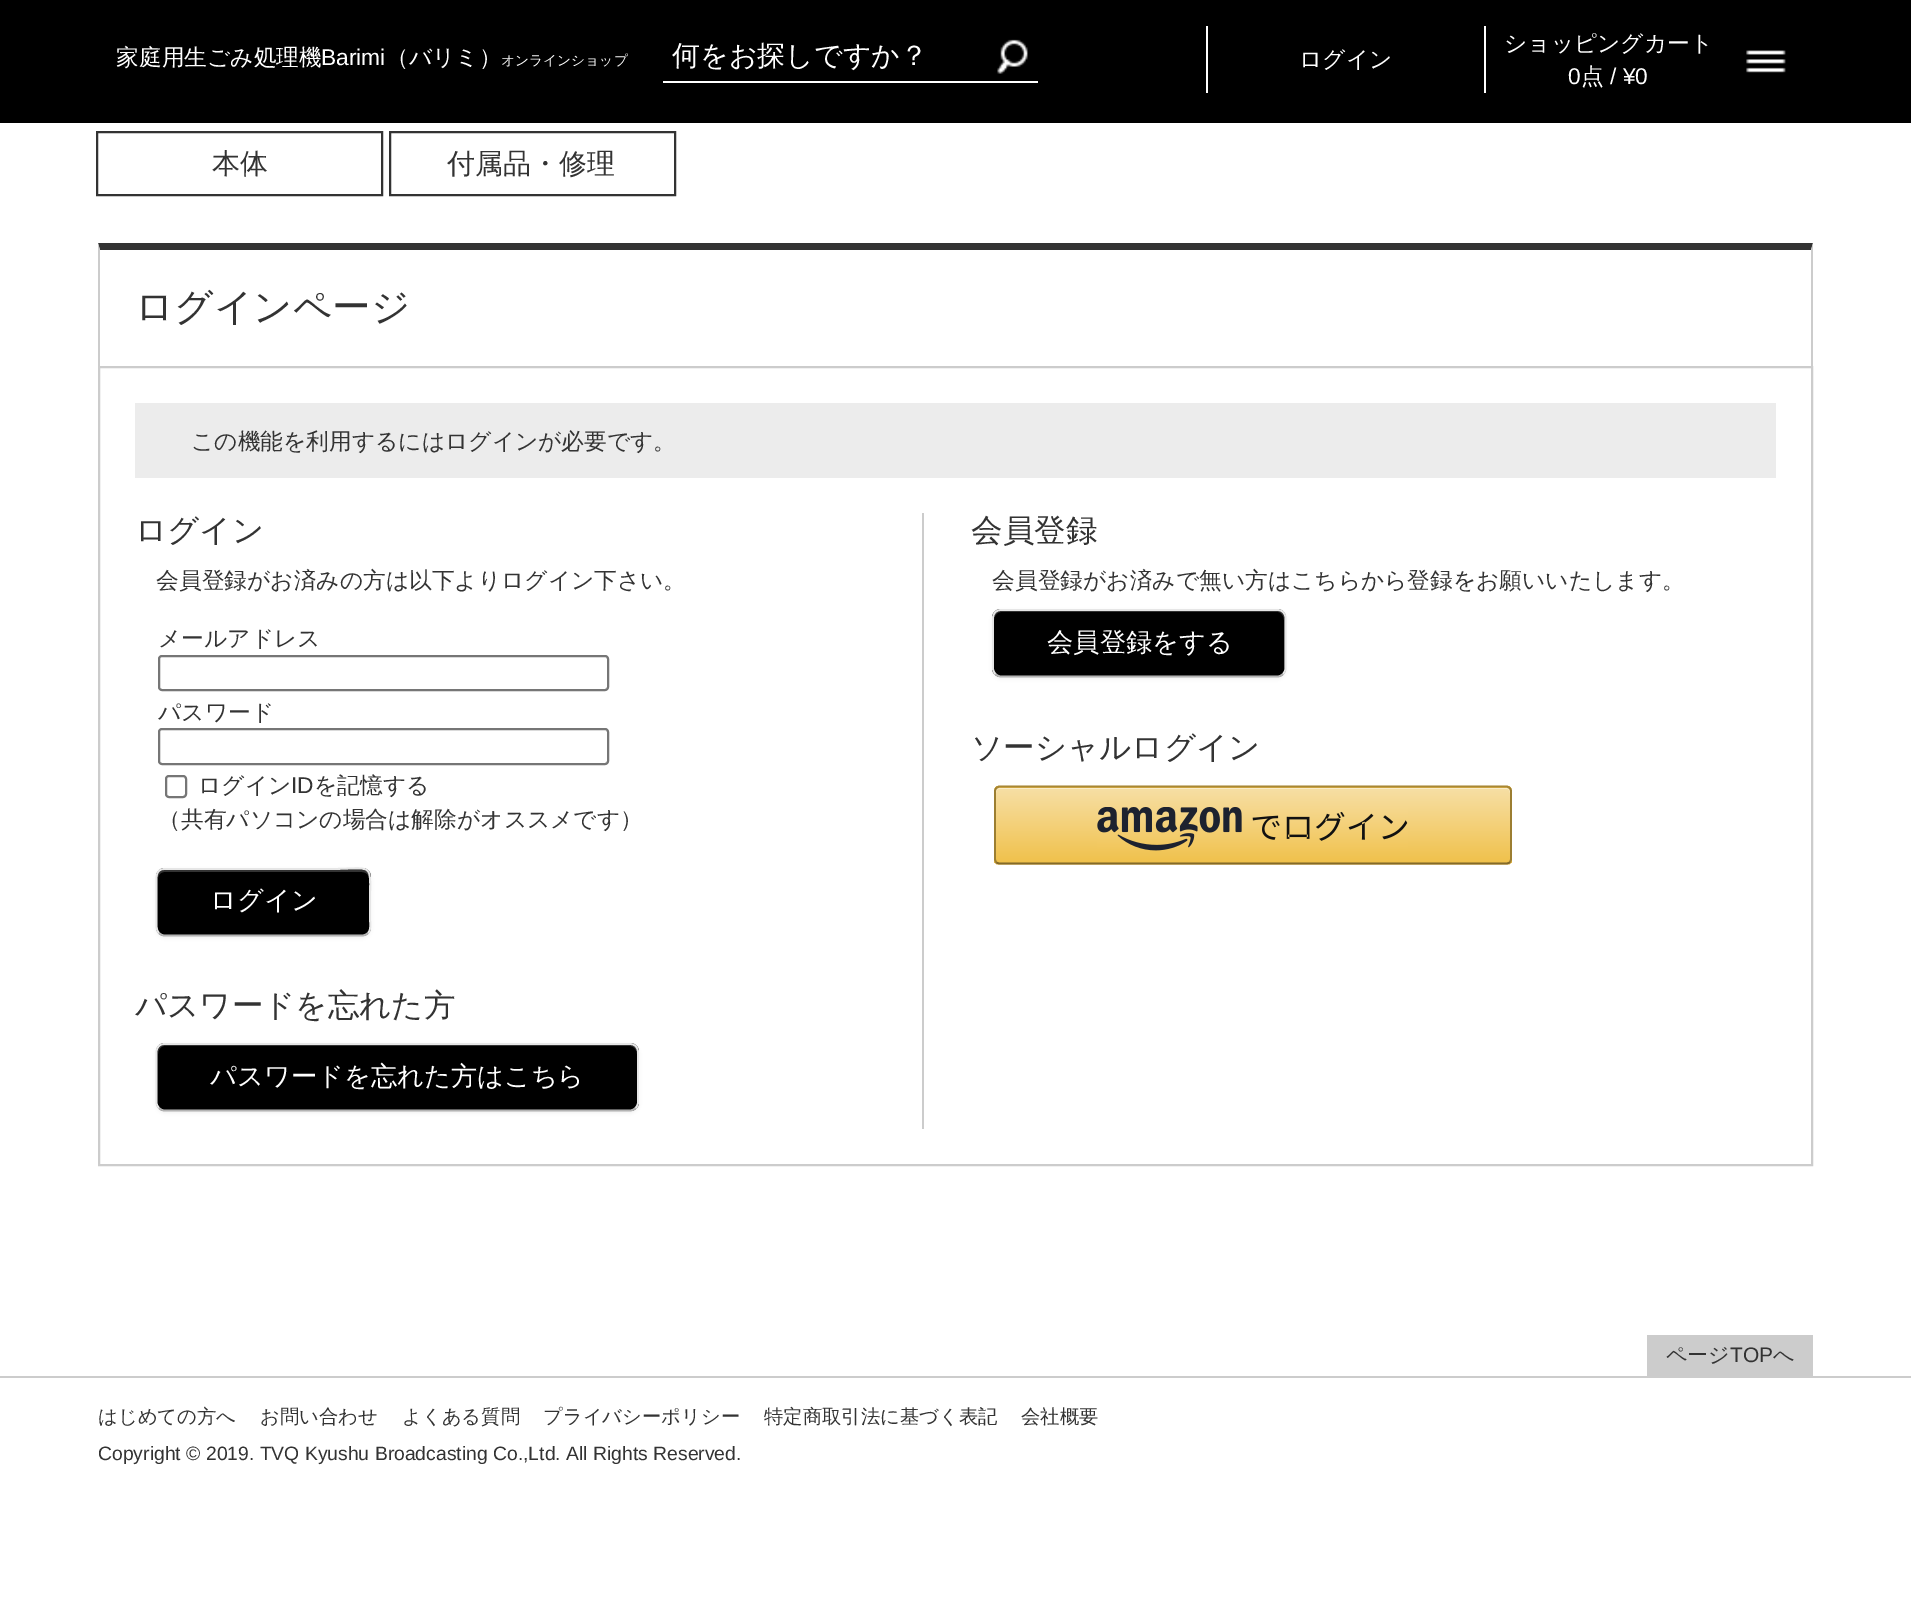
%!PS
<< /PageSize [1911 1605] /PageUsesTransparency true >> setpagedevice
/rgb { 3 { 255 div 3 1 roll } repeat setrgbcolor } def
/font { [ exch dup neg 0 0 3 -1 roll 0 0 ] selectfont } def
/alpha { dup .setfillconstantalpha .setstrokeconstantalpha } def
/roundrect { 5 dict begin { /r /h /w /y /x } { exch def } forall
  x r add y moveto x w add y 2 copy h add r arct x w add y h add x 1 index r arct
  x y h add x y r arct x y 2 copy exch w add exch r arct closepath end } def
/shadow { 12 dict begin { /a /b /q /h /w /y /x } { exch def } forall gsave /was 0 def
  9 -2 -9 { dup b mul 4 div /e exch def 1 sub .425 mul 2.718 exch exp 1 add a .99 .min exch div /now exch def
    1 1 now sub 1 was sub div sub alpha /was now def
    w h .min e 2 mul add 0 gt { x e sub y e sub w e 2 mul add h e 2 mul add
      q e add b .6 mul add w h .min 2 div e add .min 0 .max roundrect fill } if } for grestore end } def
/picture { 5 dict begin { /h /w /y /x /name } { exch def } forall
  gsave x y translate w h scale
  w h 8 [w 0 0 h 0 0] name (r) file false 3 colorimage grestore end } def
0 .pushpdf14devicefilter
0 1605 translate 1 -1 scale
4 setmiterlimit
255 255 255 rgb
0 0 1911 1605 rectfill
0 0 0 rgb
0 0 1911 123 rectfill
255 255 255 rgb
663 81 375 2 rectfill
(img/1.rgb) 997 39 31 35 picture
1484 26 2 67 rectfill
1206 26 2 67 rectfill
(img/2.rgb) 1746 50 40 23 picture
51 51 51 rgb
2 setlinewidth
97 132 285 63 rectstroke
390 132 285 63 rectstroke
98 243 moveto 1813 243 lineto 1811 250 lineto 100 250 lineto closepath fill
204 204 204 rgb
1813 243 moveto 1813 366 lineto 1811 366 lineto 1811 250 lineto closepath fill
98 366 moveto 98 243 lineto 100 250 lineto 100 366 lineto closepath fill
99 367 1713 798 rectstroke
236 236 236 rgb
135 403 1641 75 rectfill
204 204 204 rgb
922 513 2 616 rectfill
118 118 118 rgb
159 656 449 34 3 roundrect stroke
159 729 449 35 3 roundrect stroke
166 776 20 21 3 roundrect stroke
0 0 0 rgb
156 870 215 68 9 2 0.05 shadow
156 868 215 68 9 roundrect fill
51 51 51 rgb
164 872 moveto 362 872 lineto 366 872 369 875 369 878 curveto 369 877 lineto 369 873 366 870 362 870 curveto 165 870 lineto 161 870 158 873 158 877 curveto 158 878 lineto 158 875 161 872 164 872 curveto closepath fill
179 179 179 rgb
1.8 setlinewidth
368 933 moveto 366.5 934.5 364.5 935.5 362 935.5 curveto 164.5 935.5 lineto 162.5 935.5 160.5 934.5 159 933 curveto stroke
230 230 230 rgb
159 933 moveto 155.5 929.5 156.5 923.5 156.5 919 curveto 156.5 885 lineto 156.5 879 155 869 164.5 869 curveto 329.5 869 lineto 375 869 370 861 370 902 curveto 370 919 lineto 370 923.5 371.5 929.5 368 933 curveto stroke
0 0 0 rgb
156 1045 483 68 9 2 0.05 shadow
156 1043 483 68 9 roundrect fill
51 51 51 rgb
164 1046 moveto 630 1046 lineto 634 1046 637 1050 637 1054 curveto 637 1052 lineto 637 1048 634 1045 630 1045 curveto 165 1045 lineto 161 1045 158 1048 158 1052 curveto 158 1054 lineto 158 1050 161 1046 164 1046 curveto closepath fill
179 179 179 rgb
635.5 1108 moveto 634 1109.5 632 1110.5 630 1110.5 curveto 164.5 1110.5 lineto 162.5 1110.5 160.5 1109.5 159 1108 curveto stroke
230 230 230 rgb
159 1108 moveto 157.5 1106.5 156.5 1104.5 156.5 1102.5 curveto 156.5 1052 lineto 156.5 1049.5 157.5 1047.5 159 1046 curveto 160.5 1044.5 162.5 1044 164.5 1044 curveto 630 1044 lineto 632 1044 634 1044.5 635.5 1046 curveto 637 1047.5 638 1049.5 638 1052 curveto 638 1102.5 lineto 638 1104.5 637 1106.5 635.5 1108 curveto stroke
0 0 0 rgb
992 611 294 68 9 2 0.05 shadow
992 609 294 68 9 roundrect fill
51 51 51 rgb
1001 612 moveto 1278 612 lineto 1281 612 1284 616 1284 620 curveto 1284 670 lineto 1284 672 1284 673 1283 674 curveto 1284 673 1285 671 1285 669 curveto 1285 618 lineto 1285 614 1282 611 1278 611 curveto 1001 611 lineto 997 611 994 614 994 618 curveto 994 620 lineto 994 616 997 612 1001 612 curveto closepath fill
179 179 179 rgb
1283 674 moveto 1281.5 675.5 1279.5 676.5 1277.5 676.5 curveto 1001 676.5 lineto 999 676.5 997 675.5 995.5 674 curveto stroke
230 230 230 rgb
995.5 674 moveto 994 672.5 993 670.5 993 668.5 curveto 993 618 lineto 993 615.5 994 613.5 995.5 612 curveto 997 610.5 999 610 1001 610 curveto 1277.5 610 lineto 1279.5 610 1281.5 610.5 1283 612 curveto 1284.5 613.5 1285.5 615.5 1285.5 618 curveto 1285.5 668.5 lineto 1285.5 670.5 1284.5 672.5 1283 674 curveto stroke
gsave
994 786 518 79 5 roundrect clip newpath
gsave 994 786 moveto 1512 786 lineto 1512 788 lineto 994 788 lineto closepath clip newpath
<< /ShadingType 2 /ColorSpace /DeviceRGB /Coords [1253 712 1253 788] /Extend [true true] /Function << /FunctionType 2 /Domain [0 1] /C0 [0.969 0.875 0.647] /C1 [0.941 0.757 0.294] /N 1 >> >> shfill grestore
gsave 994 788 moveto 1512 788 lineto 1512 863 lineto 994 863 lineto closepath clip newpath
<< /ShadingType 2 /ColorSpace /DeviceRGB /Coords [1253 788 1253 863] /Extend [true true] /Function << /FunctionType 2 /Domain [0 1] /C0 [0.969 0.875 0.647] /C1 [0.941 0.757 0.294] /N 1 >> >> shfill grestore
gsave 994 863 moveto 1512 863 lineto 1512 865 lineto 994 865 lineto closepath clip newpath
<< /ShadingType 2 /ColorSpace /DeviceRGB /Coords [1253 863 1253 938] /Extend [true true] /Function << /FunctionType 2 /Domain [0 1] /C0 [0.969 0.875 0.647] /C1 [0.941 0.757 0.294] /N 1 >> >> shfill grestore
grestore
250 236 200 rgb
999 789 moveto 1507 789 lineto 1509 789 1510 791 1510 793 curveto 1510 792 lineto 1510 790 1508 788 1506 788 curveto 1000 788 lineto 998 788 996 790 996 792 curveto 996 793 lineto 996 791 997 789 999 789 curveto closepath fill
168 135 52 rgb
996 788 moveto 999 786.5 lineto 1507 786.5 lineto 1510 788 lineto stroke
156 126 49 rgb
1510 788 moveto 1511 790.5 lineto 1511 859.5 lineto 1510 862.5 lineto stroke
132 106 41 rgb
1510 862.5 moveto 1507 863.5 lineto 999 863.5 lineto 996 862.5 lineto stroke
156 126 49 rgb
996 862.5 moveto 995 859.5 lineto 995 790.5 lineto 996 788 lineto stroke
(img/3.rgb) 1097 807 311 44 picture
204 204 204 rgb
0 1376 1911 2 rectfill
1647 1335 166 41 rectfill
/WenQuanYiZenHei-Medium 22.75 font
255 255 255 rgb
116 65 moveto (家庭用生ごみ処理機) show
/LiberationSans-Regular 22.75 font
321 65 moveto (Barimi) show
/WenQuanYiZenHei-Medium 22.75 font
386 65 moveto (（バリミ）) show
/WenQuanYiZenHei-Medium 13.75 font
501 65 moveto (オンラインショップ) show
/WenQuanYiZenHei-Medium 28 font
672 65 moveto (何をお探しですか？) show
/WenQuanYiZenHei-Medium 22.75 font
1299 67 moveto (ログイン) show
1504 51 moveto (ショッピングカート) show
/LiberationSans-Regular 22.75 font
1568 84 moveto (0) show
/WenQuanYiZenHei-Medium 22.75 font
1581 84 moveto (点) show
/LiberationSans-Regular 22.75 font
1610 84 moveto (/ ¥0) show
/WenQuanYiZenHei-Medium 28 font
51 51 51 rgb
212 173 moveto (本体) show
447 173 moveto (付属品・修理) show
/WenQuanYiZenHei-Medium 38.5 font
135 320 moveto (ログインページ) show
/WenQuanYiZenHei-Medium 22.75 font
191 449 moveto (この機能を利用するにはログインが必要です。) show
/WenQuanYiZenHei-Medium 31.5 font
135 541 moveto (ログイン) show
/WenQuanYiZenHei-Medium 22.75 font
[
  [(会員登録がお済みの方は以下よりログイン下さい。) 156 588]
  [(メールアドレス) 158 646]
  [(パスワード) 158 720]
  [(ログイン) 198 793]
] { aload pop moveto show } forall
/LiberationSans-Regular 22.75 font
291 793 moveto (ID) show
/WenQuanYiZenHei-Medium 22.75 font
314 793 moveto (を記憶する) show
158 827 moveto (（共有パソコンの場合は解除がオススメです）) show
/WenQuanYiZenHei-Medium 26.25 font
255 255 255 rgb
210 909 moveto (ログイン) show
/WenQuanYiZenHei-Medium 31.5 font
51 51 51 rgb
135 1016 moveto (パスワードを忘れた方) show
/WenQuanYiZenHei-Medium 26.25 font
255 255 255 rgb
210 1085 moveto (パスワードを忘れた方はこちら) show
/WenQuanYiZenHei-Medium 31.5 font
51 51 51 rgb
971 541 moveto (会員登録) show
/WenQuanYiZenHei-Medium 22.75 font
992 588 moveto (会員登録がお済みで無い方はこちらから登録をお願いいたします。) show
/WenQuanYiZenHei-Medium 26.25 font
255 255 255 rgb
1047 651 moveto (会員登録をする) show
/WenQuanYiZenHei-Medium 31.5 font
51 51 51 rgb
971 758 moveto (ソーシャルログイン) show
/WenQuanYiZenHei-Medium 21 font
1666 1362 moveto (ページ) show
/LiberationSans-Regular 21 font
1730 1362 moveto (TOP) show
/WenQuanYiZenHei-Medium 21 font
1773 1362 moveto (へ) show
/WenQuanYiZenHei-Medium 19.35 font
[
  [(はじめての方へ) 98 1423]
  [(お問い合わせ) 260 1423]
  [(よくある質問) 402 1423]
  [(プライバシーポリシー) 543 1423]
  [(特定商取引法に基づく表記) 764 1423]
  [(会社概要) 1021 1423]
] { aload pop moveto show } forall
/LiberationSans-Regular 19.35 font
98 1460 moveto (Copyright © 2019. TVQ Kyushu Broadcasting Co.,Ltd. All Rights Reserved.) show
.poppdf14devicefilter showpage
